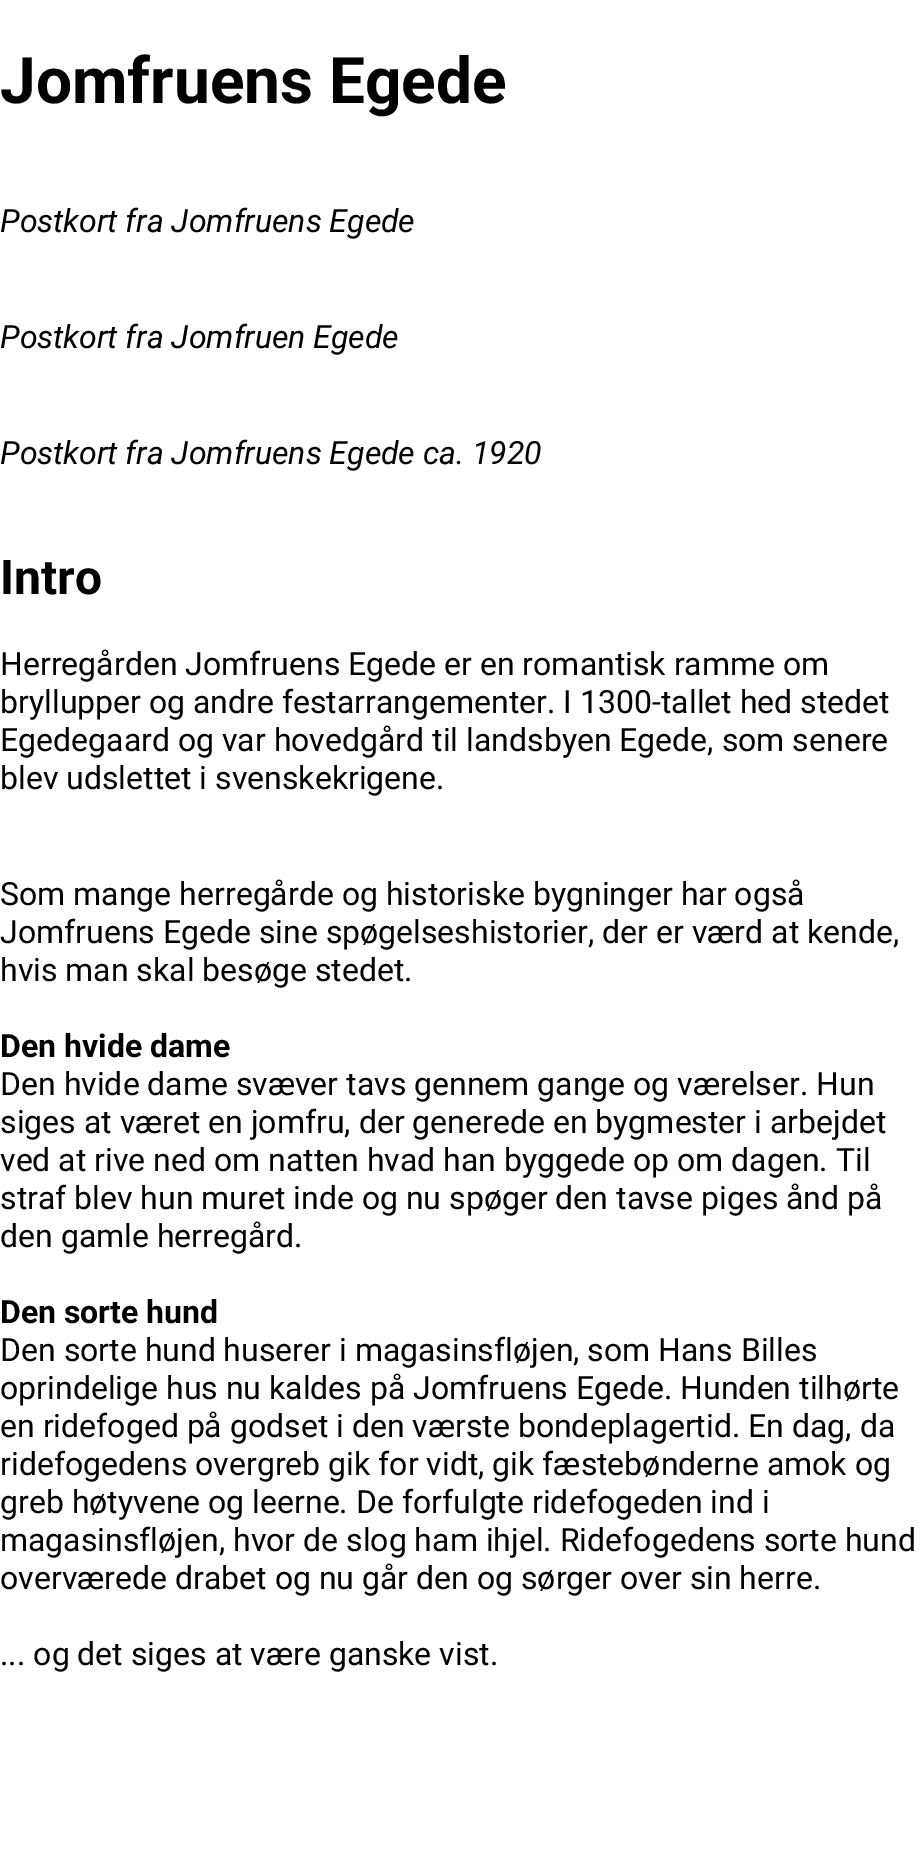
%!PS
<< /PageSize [922 1859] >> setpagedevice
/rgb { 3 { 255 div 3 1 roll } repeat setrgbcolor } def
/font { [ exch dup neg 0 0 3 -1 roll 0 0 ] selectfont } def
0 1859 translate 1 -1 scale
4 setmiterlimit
255 255 255 rgb
0 0 922 1859 rectfill
/Roboto-Bold 64 font
0 0 0 rgb
0 103 moveto (Jomfruens Egede) show
/Roboto-Italic 32 font
[
  [(Postkort fra Jomfruens Egede) 0 232]
  [(Postkort fra Jomfruen Egede) 0 348]
  [(Postkort fra Jomfruens Egede ca. 1920) 0 464]
] { aload pop moveto show } forall
/Roboto-Bold 48 font
0 594 moveto (Intro) show
/Roboto-Regular 32 font
[
  [(Herregården Jomfruens Egede er en romantisk ramme om) 0 675]
  [(bryllupper og andre festarrangementer. I 1300-tallet hed stedet) 0 713]
  [(Egedegaard og var hovedgård til landsbyen Egede, som senere) 0 751]
  [(blev udslettet i svenskekrigene.) 0 789]
  [(Som mange herregårde og historiske bygninger har også) 0 905]
  [(Jomfruens Egede sine spøgelseshistorier, der er værd at kende,) 0 943]
  [(hvis man skal besøge stedet.) 0 981]
] { aload pop moveto show } forall
/Roboto-Bold 32 font
0 1057 moveto (Den hvide dame) show
/Roboto-Regular 32 font
[
  [(Den hvide dame svæver tavs gennem gange og værelser. Hun) 0 1095]
  [(siges at været en jomfru, der generede en bygmester i arbejdet) 0 1133]
  [(ved at rive ned om natten hvad han byggede op om dagen. Til) 0 1171]
  [(straf blev hun muret inde og nu spøger den tavse piges ånd på) 0 1209]
  [(den gamle herregård.) 0 1247]
] { aload pop moveto show } forall
/Roboto-Bold 32 font
0 1323 moveto (Den sorte hund) show
/Roboto-Regular 32 font
[
  [(Den sorte hund huserer i magasinsfløjen, som Hans Billes) 0 1361]
  [(oprindelige hus nu kaldes på Jomfruens Egede. Hunden tilhørte) 0 1399]
  [(en ridefoged på godset i den værste bondeplagertid. En dag, da) 0 1437]
  [(ridefogedens overgreb gik for vidt, gik fæstebønderne amok og) 0 1475]
  [(greb høtyvene og leerne. De forfulgte ridefogeden ind i) 0 1513]
  [(magasinsfløjen, hvor de slog ham ihjel. Ridefogedens sorte hund) 0 1551]
  [(overværede drabet og nu går den og sørger over sin herre.) 0 1589]
  [(... og det siges at være ganske vist.) 0 1665]
] { aload pop moveto show } forall
showpage
